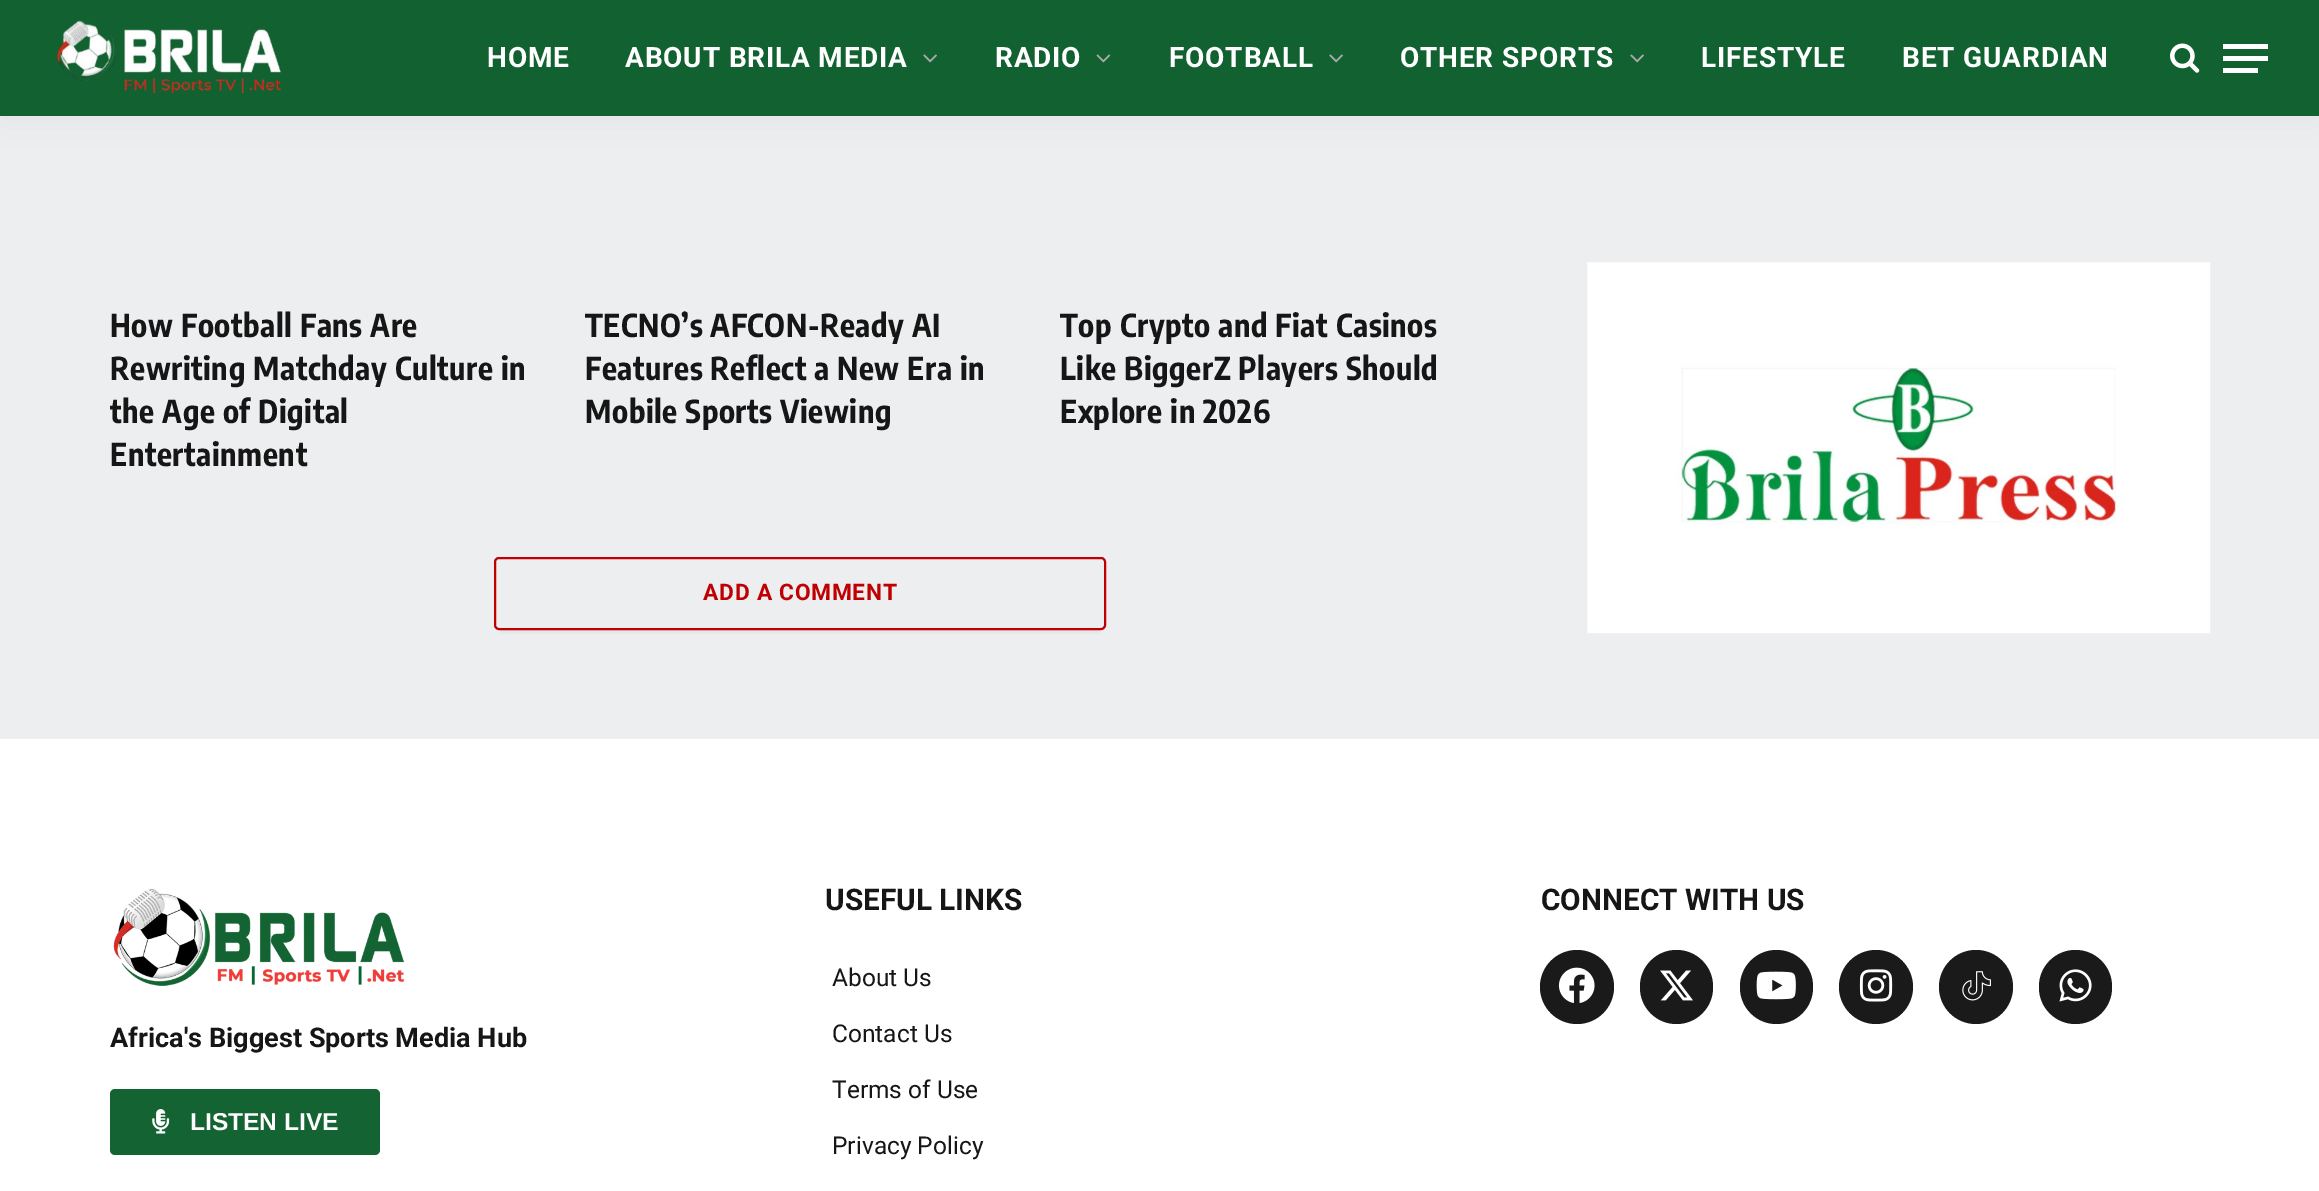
%!PS
<< /PageSize [2319 1191] /PageUsesTransparency true >> setpagedevice
/rgb { 3 { 255 div 3 1 roll } repeat setrgbcolor } def
/font { [ exch dup neg 0 0 3 -1 roll 0 0 ] selectfont } def
/alpha { dup .setfillconstantalpha .setstrokeconstantalpha } def
/circle { newpath 0 360 arc closepath } def
/roundrect { 5 dict begin { /r /h /w /y /x } { exch def } forall
  x r add y moveto x w add y 2 copy h add r arct x w add y h add x 1 index r arct
  x y h add x y r arct x y 2 copy exch w add exch r arct closepath end } def
/shadow { 12 dict begin { /a /b /q /h /w /y /x } { exch def } forall gsave /was 0 def
  9 -2 -9 { dup b mul 4 div /e exch def 1 sub .425 mul 2.718 exch exp 1 add a .99 .min exch div /now exch def
    1 1 now sub 1 was sub div sub alpha /was now def
    w h .min e 2 mul add 0 gt { x e sub y e sub w e 2 mul add h e 2 mul add
      q e add b .6 mul add w h .min 2 div e add .min 0 .max roundrect fill } if } for grestore end } def
/picture { 5 dict begin { /h /w /y /x /name } { exch def } forall
  gsave x y translate w h scale
  w h 8 [w 0 0 h 0 0] name (r) file false 3 colorimage grestore end } def
0 .pushpdf14devicefilter
0 1191 translate 1 -1 scale
4 setmiterlimit
237 238 240 rgb
0 0 2319 1191 rectfill
0 0 0 rgb
0 0 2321 116 0 17.5 0.05 shadow
18 98 49 rgb
0 0 2319 116 rectfill
(img/1.rgb) 56 20 226 74 picture
(img/2.rgb) 923 54 14 9 picture
(img/3.rgb) 1096 54 15 9 picture
(img/2.rgb) 1329 54 14 9 picture
(img/2.rgb) 1630 54 14 9 picture
(img/4.rgb) 2170 43 30 30 picture
[
  [2223 68 35 5 255 255 255]
  [2223 44 45 5 255 255 255]
  [2223 56 45 5 255 255 255]
] { aload pop rgb rectfill } forall
gsave
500 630 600 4 rectclip
0 0 0 rgb
501 567 598 60 0 6 0.16 shadow
grestore
192 0 0 rgb
2 setlinewidth
495 558 610 71 4 roundrect stroke
(img/5.rgb) 1587 262 624 372 picture
255 255 255 rgb
0 739 2319 452 rectfill
26 26 26 rgb
1577 987 37 circle fill
(img/6.rgb) 1558 967 37 36 picture
1640 950 73 74 36.5 roundrect fill
(img/7.rgb) 1660 970 33 31 picture
1740 950 73 74 36.5 roundrect fill
(img/8.rgb) 1756 971 40 29 picture
1876 987 37 circle fill
(img/9.rgb) 1859 969 34 33 picture
1976 987 37 circle fill
(img/10.rgb) 1962 971 29 30 picture
2039 950 73 74 36.5 roundrect fill
(img/11.rgb) 2059 969 33 33 picture
(img/12.rgb) 113 888 292 98 picture
20 100 51 rgb
110 1089 270 66 5 roundrect fill
(img/13.rgb) 152 1109 18 25 picture
/Roboto-Bold 28 font
255 255 255 rgb
487 67 moveto 0.8 0 (HOME) ashow
625 67 moveto 0.8 0 (ABOUT BRILA MEDIA) ashow
995 67 moveto 0.8 0 (RADIO) ashow
1169 67 moveto 0.8 0 (FOOTBALL) ashow
1400 67 moveto 0.8 0 (OTHER SPORTS) ashow
1701 67 moveto 0.8 0 (LIFESTYLE) ashow
1902 67 moveto 0.8 0 (BET GUARDIAN) ashow
/EncodeSansCondensed-Bold 31.5 font
22 22 22 rgb
110 337 moveto 0.6 0 (How Football Fans Are) ashow
110 380 moveto 0.6 0 (Rewriting Matchday Culture in) ashow
110 423 moveto 0.6 0 (the Age of Digital) ashow
110 466 moveto 0.6 0 (Entertainment) ashow
585 337 moveto 0.6 0 (TECNO’s AFCON-Ready AI) ashow
585 380 moveto 0.6 0 (Features Reflect a New Era in) ashow
585 423 moveto 0.6 0 (Mobile Sports Viewing) ashow
1060 337 moveto 0.6 0 (Top Crypto and Fiat Casinos) ashow
1060 380 moveto 0.6 0 (Like BiggerZ Players Should) ashow
1060 423 moveto 0.6 0 (Explore in 2026) ashow
/Roboto-Bold 22.75 font
192 0 0 rgb
703 600 moveto 0.75 0 (ADD A COMMENT) ashow
/Roboto-Bold 29.75 font
22 22 22 rgb
825 910 moveto (USEFUL LINKS) show
/Roboto-Regular 24.5 font
[
  [(About Us) 832 986]
  [(Contact Us) 832 1042]
  [(Terms of Use) 832 1098]
  [(Privacy Policy) 832 1154]
] { aload pop moveto show } forall
/Roboto-Bold 29.75 font
1541 910 moveto (CONNECT WITH US) show
/Roboto-Bold 27.1 font
110 1047 moveto (Africa's Biggest Sports Media Hub) show
/LiberationSans-Bold 24.5 font
255 255 255 rgb
190 1130 moveto (LISTEN LIVE) show
.poppdf14devicefilter showpage
